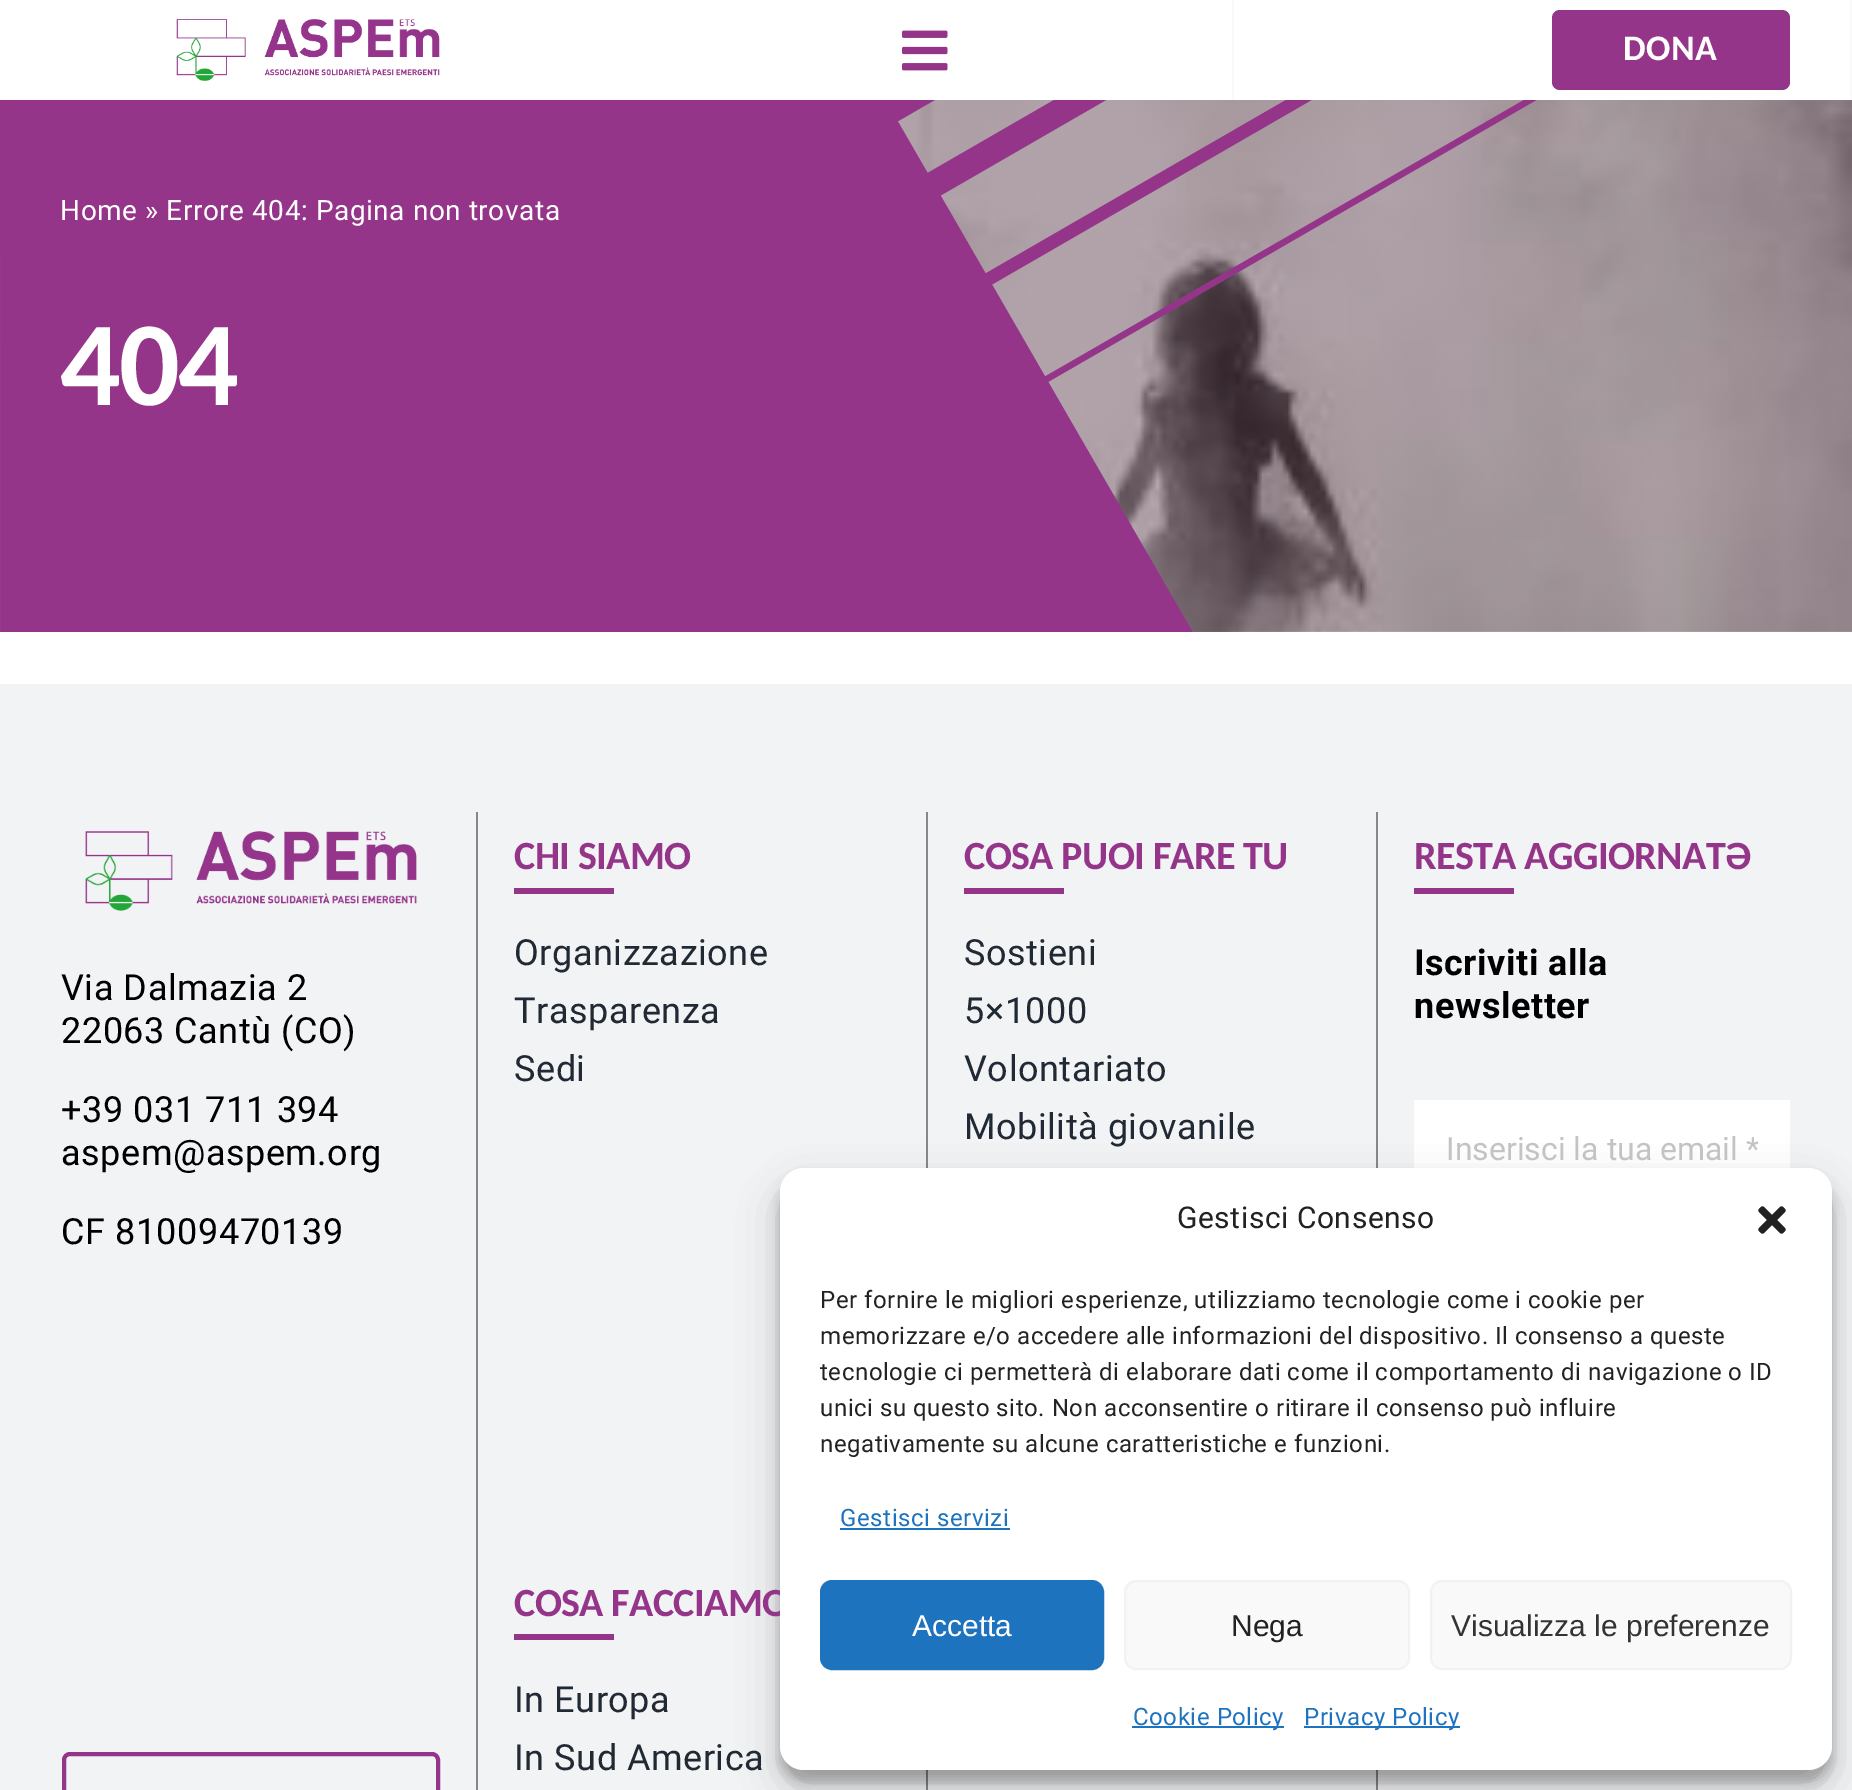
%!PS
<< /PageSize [1852 1790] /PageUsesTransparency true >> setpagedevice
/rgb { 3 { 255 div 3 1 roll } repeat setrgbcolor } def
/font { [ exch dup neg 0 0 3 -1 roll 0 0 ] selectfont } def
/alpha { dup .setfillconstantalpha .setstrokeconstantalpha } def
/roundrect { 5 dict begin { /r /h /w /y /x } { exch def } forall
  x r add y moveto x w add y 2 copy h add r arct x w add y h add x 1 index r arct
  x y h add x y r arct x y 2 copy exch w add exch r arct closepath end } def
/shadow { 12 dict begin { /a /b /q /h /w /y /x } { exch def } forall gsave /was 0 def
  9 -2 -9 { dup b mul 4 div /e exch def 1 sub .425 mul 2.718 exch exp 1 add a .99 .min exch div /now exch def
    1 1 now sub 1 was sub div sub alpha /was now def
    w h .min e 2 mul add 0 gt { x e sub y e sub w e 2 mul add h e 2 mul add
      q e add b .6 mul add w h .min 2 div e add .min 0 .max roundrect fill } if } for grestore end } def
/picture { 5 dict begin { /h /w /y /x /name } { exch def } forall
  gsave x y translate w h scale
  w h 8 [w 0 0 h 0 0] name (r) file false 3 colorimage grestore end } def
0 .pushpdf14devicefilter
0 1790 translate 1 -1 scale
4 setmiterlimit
255 255 255 rgb
0 0 1852 1790 rectfill
(img/1.rgb) 176 19 264 62 picture
249 249 251 rgb
1232 0 2 100 rectfill
(img/2.rgb) 902 30 46 41 picture
1850 0 2 100 rectfill
148 53 138 rgb
1552 10 238 80 8 roundrect fill
(img/3.rgb) 0 100 1852 532 picture
(img/4.rgb) 0 100 1537 532 picture
242 243 245 rgb
0 684 1852 1106 rectfill
(img/5.rgb) 85 831 332 80 picture
148 53 138 rgb
4 setlinewidth
64 1754 374 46 6 roundrect stroke
[
  [476 812 2 978 135 135 135]
  [514 888 100 6 148 53 138]
  [514 1634 100 6 148 53 138]
  [926 812 2 978 135 135 135]
  [964 888 100 6 148 53 138]
  [1376 812 2 978 135 135 135]
  [1414 888 100 6 148 53 138]
  [1414 1100 376 68 255 255 255]
] { aload pop rgb rectfill } forall
0 0 0 rgb
780 1180 1052 602 24 6 0.23 shadow
780 1188 1052 602 24 20 0.19 shadow
/Carlito-Bold 36 font
255 255 255 rgb
1623 60 moveto 0.55 0 (DONA) ashow
/Roboto-Regular 28 font
60 220 moveto 0.55 0 (Home » Errore 404: Pagina non trovata) ashow
/Carlito-Bold 120 font
60 405 moveto -2 0 (404) ashow
/Roboto-Regular 36 font
0 0 0 rgb
61 1000 moveto 0.55 0 (Via Dalmazia 2) ashow
61 1043 moveto 0.55 0 (22063 Cantù \(CO\)) ashow
61 1122 moveto 0.55 0 (+39 031 711 394) ashow
61 1165 moveto 0.55 0 (aspem@aspem.org) ashow
61 1244 moveto 0.55 0 (CF 81009470139) ashow
/Carlito-Bold 40 font
148 53 138 rgb
514 869 moveto -0.6 0 (CHI SIAMO) ashow
/Roboto-Regular 36 font
33 41 52 rgb
514 965 moveto 0.55 0 (Organizzazione) ashow
514 1023 moveto 0.55 0 (Trasparenza) ashow
514 1081 moveto 0.55 0 (Sedi) ashow
/Carlito-Bold 40 font
148 53 138 rgb
514 1616 moveto -0.6 0 (COSA FACCIAMO) ashow
/Roboto-Regular 36 font
33 41 52 rgb
514 1712 moveto 0.55 0 (In Europa) ashow
514 1770 moveto 0.55 0 (In Sud America) ashow
/Carlito-Bold 40 font
148 53 138 rgb
964 869 moveto -0.6 0 (COSA PUOI FARE TU) ashow
/Roboto-Regular 36 font
33 41 52 rgb
964 965 moveto 0.55 0 (Sostieni) ashow
964 1023 moveto 0.55 0 (5×1000) ashow
964 1081 moveto 0.55 0 (Volontariato) ashow
964 1139 moveto 0.55 0 (Mobilità giovanile) ashow
/Carlito-Bold 40 font
148 53 138 rgb
1414 869 moveto -0.6 0 (RESTA AGGIORNATƏ) ashow
/Roboto-Bold 36 font
0 0 0 rgb
1414 975 moveto 0.55 0 (Iscriviti alla) ashow
1414 1018 moveto 0.55 0 (newsletter) ashow
gsave
1446 1130 312 38 rectclip
/Roboto-Regular 32 font
195 195 195 rgb
1446 1160 moveto (Inserisci la tua email *) show
grestore
255 255 255 rgb
780 1168 1052 602 24 roundrect fill
/Roboto-Regular 30 font
34 34 34 rgb
1177 1228 moveto 0.55 0 (Gestisci Consenso) ashow
(img/6.rgb) 1758 1206 28 28 picture
/Roboto-Regular 24 font
820 1308 moveto 0.55 0 (Per fornire le migliori esperienze, utilizziamo tecnologie come i cookie per) ashow
820 1344 moveto 0.55 0 (memorizzare e/o accedere alle informazioni del dispositivo. Il consenso a queste) ashow
820 1380 moveto 0.55 0 (tecnologie ci permetterà di elaborare dati come il comportamento di navigazione o ID) ashow
820 1416 moveto 0.55 0 (unici su questo sito. Non acconsentire o ritirare il consenso può influire) ashow
820 1452 moveto 0.55 0 (negativamente su alcune caratteristiche e funzioni.) ashow
30 115 190 rgb
840 1526 moveto 0.55 0 (Gestisci servizi) ashow
840 1528 170 2 rectfill
821 1581 282 88 11 roundrect gsave fill grestore
2 setlinewidth
stroke
/LiberationSans-Regular 30 font
255 255 255 rgb
912 1636 moveto (Accetta) show
249 249 249 rgb
1125 1581 284 88 11 roundrect gsave fill grestore
242 242 242 rgb
stroke
34 34 34 rgb
1231 1636 moveto (Nega) show
249 249 249 rgb
1431 1581 360 88 11 roundrect gsave fill grestore
242 242 242 rgb
stroke
51 51 51 rgb
1451 1636 moveto (Visualizza le preferenze) show
30 115 190 rgb
1132 1726 152 2 rectfill
/Roboto-Regular 24 font
1133 1725 moveto 0.55 0 (Cookie Policy) ashow
1304 1726 156 2 rectfill
1304 1725 moveto 0.55 0 (Privacy Policy) ashow
.poppdf14devicefilter showpage
